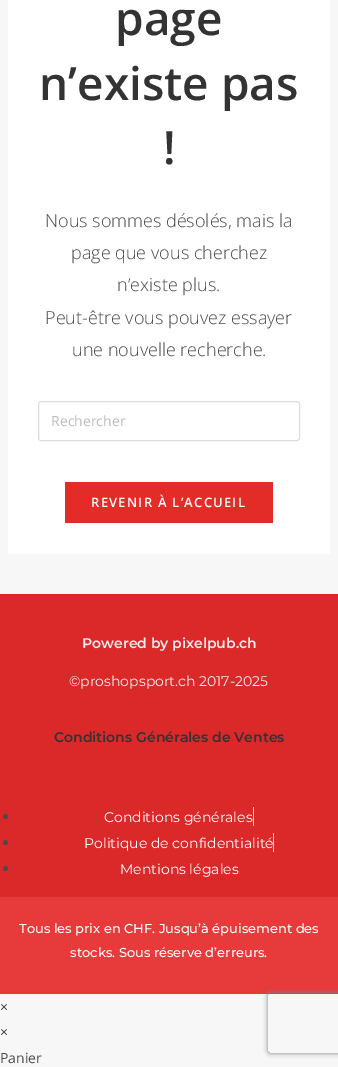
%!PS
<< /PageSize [338 1067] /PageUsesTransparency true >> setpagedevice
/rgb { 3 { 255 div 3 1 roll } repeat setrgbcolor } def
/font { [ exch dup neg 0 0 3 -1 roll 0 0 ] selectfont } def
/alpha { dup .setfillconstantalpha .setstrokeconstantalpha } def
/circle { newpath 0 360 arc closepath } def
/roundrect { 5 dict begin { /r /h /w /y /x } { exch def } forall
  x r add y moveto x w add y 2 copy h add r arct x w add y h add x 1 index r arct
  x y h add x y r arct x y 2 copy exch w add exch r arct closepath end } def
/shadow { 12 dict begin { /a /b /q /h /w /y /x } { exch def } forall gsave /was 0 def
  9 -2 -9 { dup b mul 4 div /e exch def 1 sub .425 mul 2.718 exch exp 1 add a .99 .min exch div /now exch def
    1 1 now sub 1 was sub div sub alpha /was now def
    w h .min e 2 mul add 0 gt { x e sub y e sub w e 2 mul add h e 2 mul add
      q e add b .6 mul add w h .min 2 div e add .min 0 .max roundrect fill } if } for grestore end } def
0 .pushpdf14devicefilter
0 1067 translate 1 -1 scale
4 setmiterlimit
247 247 247 rgb
0 0 338 1067 rectfill
255 255 255 rgb
8 0 322 554 rectfill
221 221 221 rgb
38.5 401.5 261 39 2.5 roundrect stroke
227 43 39 rgb
65 482 208 41 rectfill
219 41 41 rgb
0 594 338 303 rectfill
74 74 74 rgb
5.5 816.5 2.5 circle fill
221 221 221 rgb
253 807 1 19 rectfill
74 74 74 rgb
5.5 842.5 2.5 circle fill
221 221 221 rgb
273 833 1 19 rectfill
74 74 74 rgb
5.5 868.5 2.5 circle fill
231 58 58 rgb
0 897 338 97 rectfill
gsave
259 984 moveto 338 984 lineto 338 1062 lineto 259 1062 lineto closepath 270 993 moveto 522 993 lineto 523 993 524 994 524 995 curveto 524 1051 lineto 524 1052 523 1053 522 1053 curveto 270 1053 lineto 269 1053 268 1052 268 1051 curveto 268 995 lineto 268 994 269 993 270 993 curveto closepath eoclip newpath
128 128 128 rgb
268 993 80 60 2 2.5 1 shadow
grestore
/OpenSans-SemiBold 46 font
51 51 51 rgb
[
  [(page) 115 35]
  [(n’existe pas) 39 100]
  [(!) 163 164]
] { aload pop moveto show } forall
/OpenSans-Light 18 font
74 74 74 rgb
[
  [(Nous sommes désolés, mais la) 45 227]
  [(page que vous cherchez) 71 259]
  [(n’existe plus.) 117 291]
  [(Peut-être vous pouvez essayer) 45 324]
  [(une nouvelle recherche.) 72 356]
] { aload pop moveto show } forall
/OpenSans-Regular 14 font
186 186 186 rgb
51 426 moveto (Rechercher) show
/OpenSans-SemiBold 13 font
255 255 255 rgb
91 507 moveto 1.25 0 (REVENIR À L’ACCUEIL) ashow
/Montserrat-SemiBold 14 font
239 239 239 rgb
82 648 moveto (Powered by pixelpub.ch) show
/Montserrat-Regular 14 font
69 686 moveto (©proshopsport.ch 2017-2025) show
/Montserrat-SemiBold 14 font
51 51 51 rgb
54 742 moveto (Conditions Générales de Ventes) show
/Montserrat-Regular 14 font
255 255 255 rgb
[
  [(Conditions générales) 104 822]
  [(Politique de confidentialité) 84 848]
  [(Mentions légales) 120 874]
] { aload pop moveto show } forall
/Montserrat-Medium 13 font
19 933 moveto (Tous les prix en CHF. Jusqu’à épuisement des) show
70 957 moveto (stocks. Sous réserve d’erreurs.) show
/OpenSans-Regular 14 font
51 51 51 rgb
0 1012 moveto (×) show
0 1037 moveto (×) show
74 74 74 rgb
0 1063 moveto (Panier) show
.poppdf14devicefilter showpage
